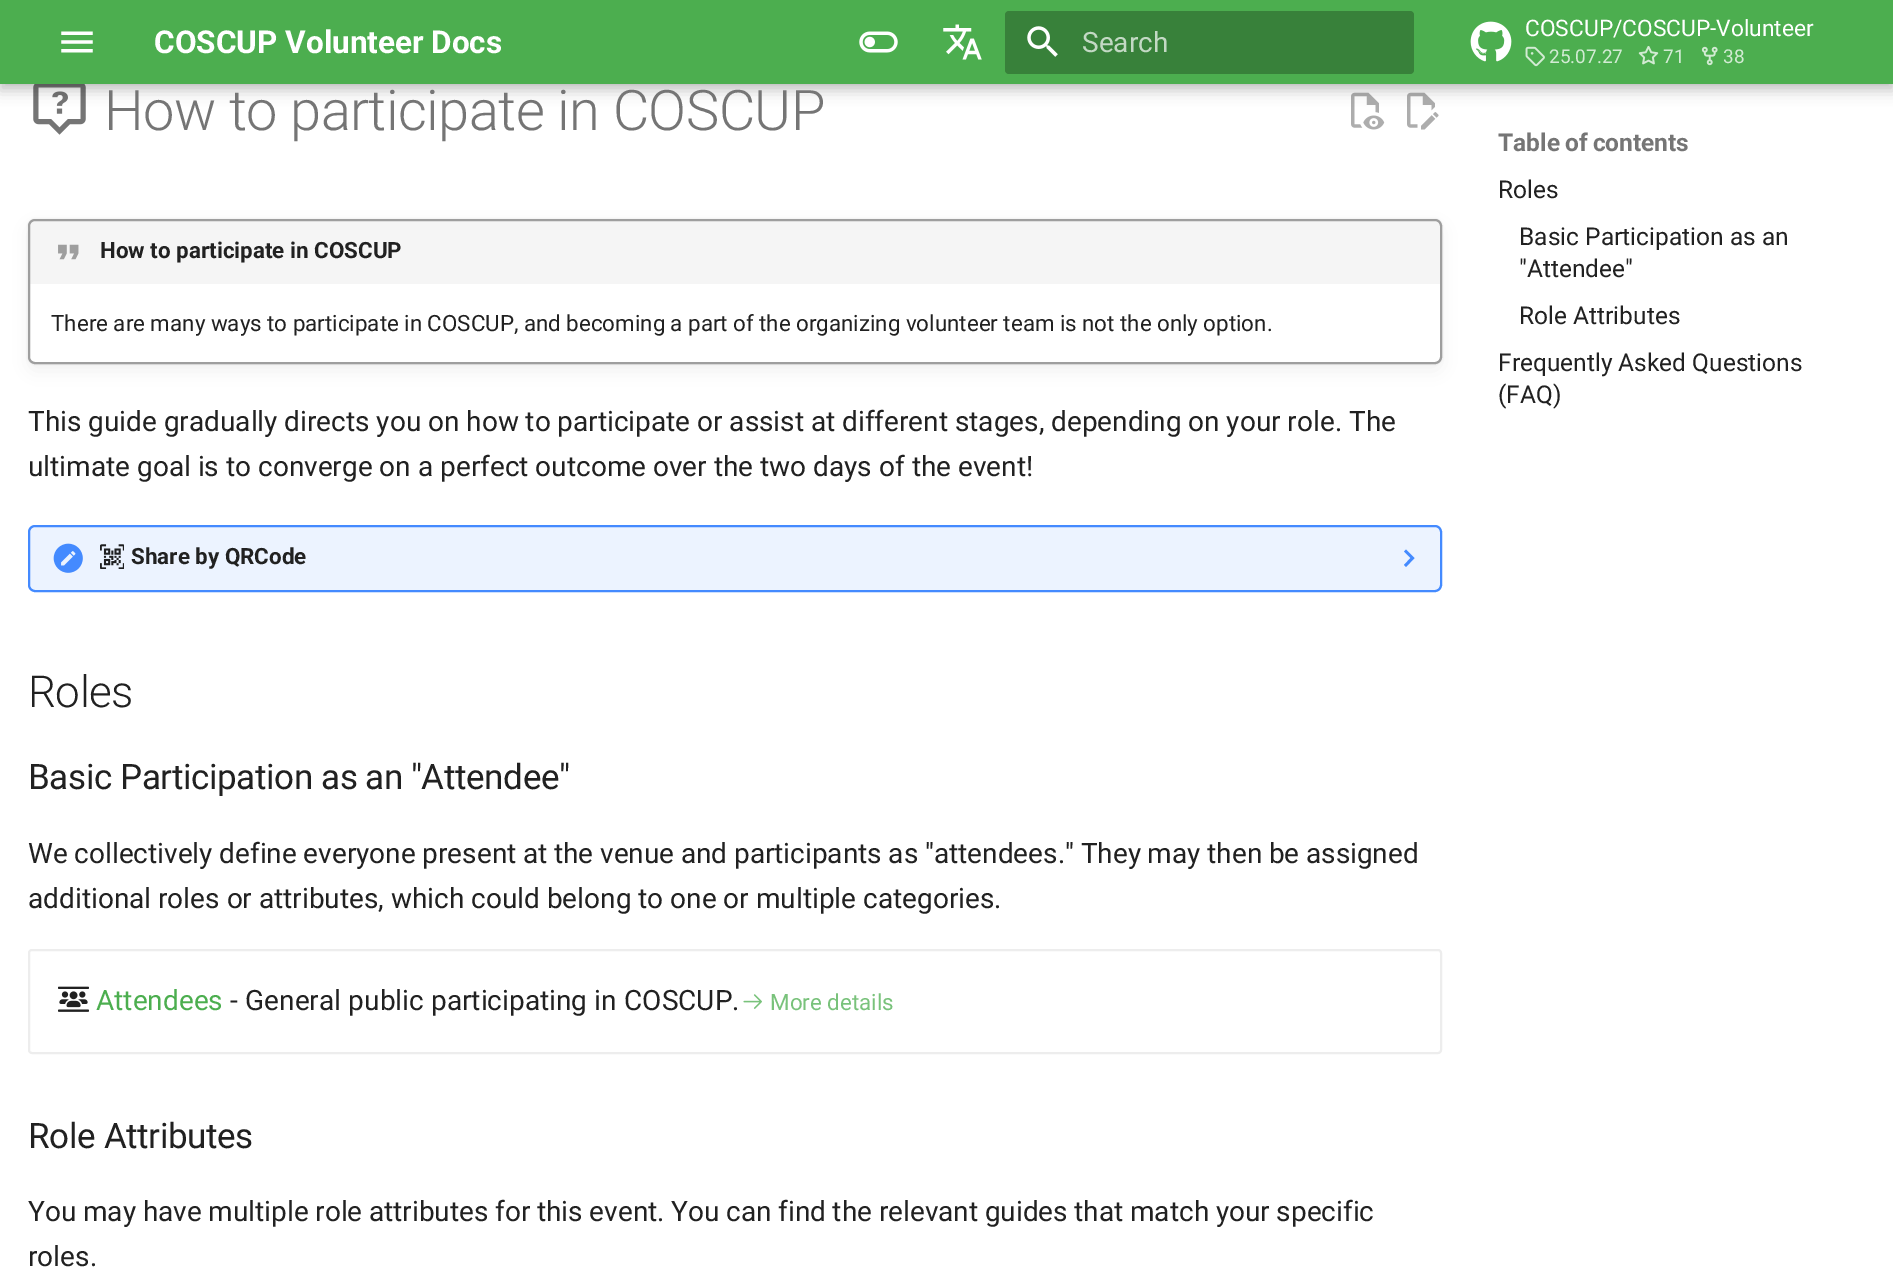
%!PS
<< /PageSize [1893 1268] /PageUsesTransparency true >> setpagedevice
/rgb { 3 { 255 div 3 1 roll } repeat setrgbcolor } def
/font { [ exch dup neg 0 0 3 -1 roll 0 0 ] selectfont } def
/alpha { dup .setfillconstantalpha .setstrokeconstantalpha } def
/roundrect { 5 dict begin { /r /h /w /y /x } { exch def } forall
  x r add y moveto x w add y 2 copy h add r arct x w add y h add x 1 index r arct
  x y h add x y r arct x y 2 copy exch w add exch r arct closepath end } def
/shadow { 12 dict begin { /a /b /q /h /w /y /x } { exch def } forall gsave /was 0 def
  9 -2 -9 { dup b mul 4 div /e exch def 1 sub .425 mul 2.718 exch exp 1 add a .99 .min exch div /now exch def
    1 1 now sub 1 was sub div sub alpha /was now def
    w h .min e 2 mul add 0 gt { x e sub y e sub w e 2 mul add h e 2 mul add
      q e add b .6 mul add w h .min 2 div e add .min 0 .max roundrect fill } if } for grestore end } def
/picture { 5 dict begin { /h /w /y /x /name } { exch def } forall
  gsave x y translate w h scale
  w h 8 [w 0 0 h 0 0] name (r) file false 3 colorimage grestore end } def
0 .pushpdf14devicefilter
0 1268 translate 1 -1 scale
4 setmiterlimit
255 255 255 rgb
0 0 1893 1268 rectfill
(img/9.rgb) 33 84 53 51 picture
(img/10.rgb) 1351 92 34 38 picture
(img/11.rgb) 1407 92 32 38 picture
0 0 0 rgb
0 7 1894 84 0 7 0.2 shadow
0 0 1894 84 0 3.5 0.1 shadow
76 174 79 rgb
0 0 1893 84 rectfill
(img/1.rgb) 61 31 32 22 picture
(img/2.rgb) 859 31 39 22 picture
(img/3.rgb) 943 24 39 36 picture
56 129 58 rgb
1005 11 409 63 4 roundrect fill
(img/4.rgb) 1027 26 31 31 picture
(img/5.rgb) 1470 21 42 41 picture
(img/6.rgb) 1525 46 20 21 picture
(img/7.rgb) 1638 46 21 19 picture
(img/8.rgb) 1701 46 17 20 picture
0 0 0 rgb
28 219 1414 145 7 1 0.1 shadow
28 226 1414 145 7 9 0.05 shadow
255 255 255 rgb
29 220 1412 143 6 roundrect gsave fill grestore
158 158 158 rgb
2 setlinewidth
stroke
0.1 alpha
34 221 moveto 1436 221 lineto 1438 221 1440 223 1440 225 curveto 1440 284 lineto 30 284 lineto 30 225 lineto 30 223 32 221 34 221 curveto closepath fill
1 alpha
(img/12.rgb) 58 244 21 16 picture
68 138 255 rgb
29 526 1412 65 6 roundrect stroke
0.1 alpha
30 527 1410 63 4 roundrect fill
1 alpha
(img/13.rgb) 53 543 30 30 picture
(img/14.rgb) 100 544 24 25 picture
1404 565 moveto 1410.5 558 lineto 1404 551.5 lineto 1406 549.5 lineto 1414.5 558 lineto 1406 567 lineto closepath fill
237 237 237 rgb
29 950 1412 103 3 roundrect stroke
(img/15.rgb) 58 986 31 26 picture
(img/16.rgb) 743 994 19 15 picture
gsave
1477 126 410 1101 rectclip
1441 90 moveto 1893 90 lineto 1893 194 lineto 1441 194 lineto closepath 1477 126 moveto 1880 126 lineto 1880 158 lineto 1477 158 lineto closepath eoclip newpath
255 255 255 rgb
1463 112 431 60 0 7 1 shadow
grestore
/Roboto-Bold 31.5 font
255 255 255 rgb
154 53 moveto (COSCUP Volunteer Docs) show
/Roboto-Regular 28 font
195 217 196 rgb
1082 52 moveto (Search) show
/Roboto-Regular 22.75 font
255 255 255 rgb
1525 36 moveto (COSCUP/COSCUP-Volunteer) show
/Roboto-Regular 19 font
210 235 211 rgb
[
  [(25.07.27) 1549 63]
  [(71) 1663 63]
  [(38) 1723 63]
] { aload pop moveto show } forall
/Roboto-Light 56 font
117 117 117 rgb
104 130 moveto -0.55 0 (How to participate in COSCUP) ashow
/Roboto-Bold 22.4 font
33 33 33 rgb
100 258 moveto (How to participate in COSCUP) show
/Roboto-Regular 22.4 font
51 331 moveto -0.2 0 32 (There are many ways to participate in COSCUP, and becoming a part of the organizing volunteer team is not the only option.) widthshow
/Roboto-Regular 28 font
28 431 moveto -0.1 0 32 (This guide gradually directs you on how to participate or assist at different stages, depending on your role. The) widthshow
28 476 moveto (ultimate goal is to converge on a perfect outcome over the two days of the event!) show
/Roboto-Bold 22.4 font
131 564 moveto (Share by QRCode) show
/Roboto-Light 44 font
28 707 moveto -0.5 0 (Roles) ashow
/Roboto-Regular 35 font
28 789 moveto -0.5 0 32 -0.35 0 (Basic Participation as an "Attendee") awidthshow
/Roboto-Regular 28 font
28 863 moveto -0.3 0 32 (We collectively define everyone present at the venue and participants as "attendees." They may then be assigned) widthshow
28 908 moveto (additional roles or attributes, which could belong to one or multiple categories.) show
76 174 79 rgb
96 1010 moveto (Attendees) show
33 33 33 rgb
230 1010 moveto 0.5 0 32 (- General public participating in COSCUP.) widthshow
/Roboto-Regular 22.4 font
121 194 123 rgb
770 1010 moveto (More details) show
/Roboto-Regular 35 font
33 33 33 rgb
28 1148 moveto -0.35 0 (Role Attributes) ashow
/Roboto-Regular 28 font
28 1221 moveto -0.3 0 32 (You may have multiple role attributes for this event. You can find the relevant guides that match your specific) widthshow
28 1266 moveto (roles.) show
/Roboto-Bold 24.5 font
117 117 117 rgb
1498 151 moveto -1 0 32 (Table of contents) widthshow
/Roboto-Regular 24.5 font
33 33 33 rgb
[
  [(Roles) 1498 198]
  [(Basic Participation as an) 1519 245]
  [("Attendee") 1519 277]
  [(Role Attributes) 1519 324]
  [(Frequently Asked Questions) 1498 371]
  [(\(FAQ\)) 1498 403]
] { aload pop moveto show } forall
.poppdf14devicefilter showpage
